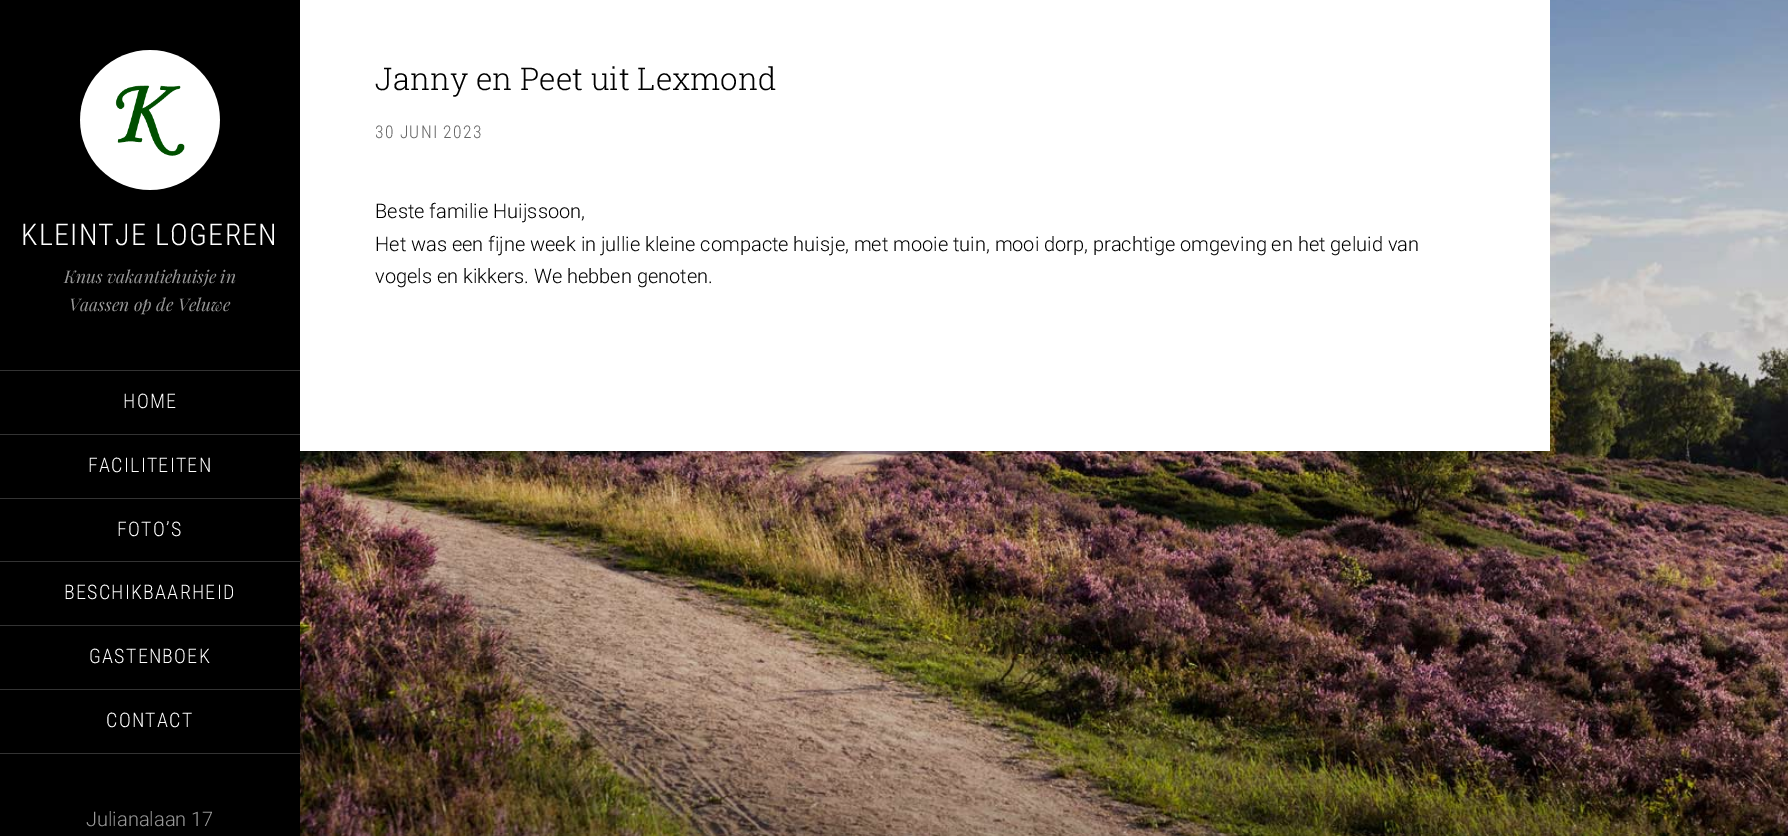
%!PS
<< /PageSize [1788 836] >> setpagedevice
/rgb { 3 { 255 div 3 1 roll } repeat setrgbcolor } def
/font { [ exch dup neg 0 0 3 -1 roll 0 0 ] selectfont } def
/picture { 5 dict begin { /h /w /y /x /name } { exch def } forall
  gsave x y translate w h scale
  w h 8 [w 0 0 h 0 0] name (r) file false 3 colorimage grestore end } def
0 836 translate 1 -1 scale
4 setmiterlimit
255 255 255 rgb
0 0 1788 836 rectfill
(img/1.rgb) 300 0 1488 836 picture
300 0 1250 451 rectfill
0 0 0 rgb
0 0 300 836 rectfill
(img/2.rgb) 80 50 140 140 picture
[
  [0 370 300 1 51 51 51]
  [0 434 300 1 51 51 51]
  [0 498 300 1 51 51 51]
  [0 561 300 1 51 51 51]
  [0 625 300 1 51 51 51]
  [0 689 300 1 51 51 51]
  [0 753 300 1 51 51 51]
] { aload pop rgb rectfill } forall
/RobotoSlab-Light 31.25 font
0 0 0 rgb
375 90 moveto (Janny en Peet uit Lexmond) show
/RobotoCondensed-Light 17.5 font
102 102 102 rgb
375 138 moveto 1.25 0 (30 JUNI 2023) ashow
/Roboto-Light 20 font
0 0 0 rgb
[
  [(Beste familie Huijssoon,) 375 218]
  [(Het was een fijne week in jullie kleine compacte huisje, met mooie tuin, mooi dorp, prachtige omgeving en het geluid van) 375 251]
  [(vogels en kikkers. We hebben genoten.) 375 283]
] { aload pop moveto show } forall
/RobotoCondensed-Light 30 font
255 255 255 rgb
21 245 moveto 1.25 0 (KLEINTJE LOGEREN) ashow
/PlayfairDisplay-Italic 17.5 font
153 153 153 rgb
64 283 moveto (Knus vakantiehuisje in) show
69 311 moveto (Vaassen op de Veluwe) show
/RobotoCondensed-Light 20 font
255 255 255 rgb
123 408 moveto 1.25 0 (HOME) ashow
88 472 moveto 1.25 0 (FACILITEITEN) ashow
117 536 moveto 1.25 0 (FOTO’S) ashow
64 599 moveto 1.25 0 (BESCHIKBAARHEID) ashow
89 663 moveto 1.25 0 (GASTENBOEK) ashow
106 727 moveto 1.25 0 (CONTACT) ashow
/Roboto-Light 20 font
153 153 153 rgb
86 826 moveto (Julianalaan 17) show
showpage
